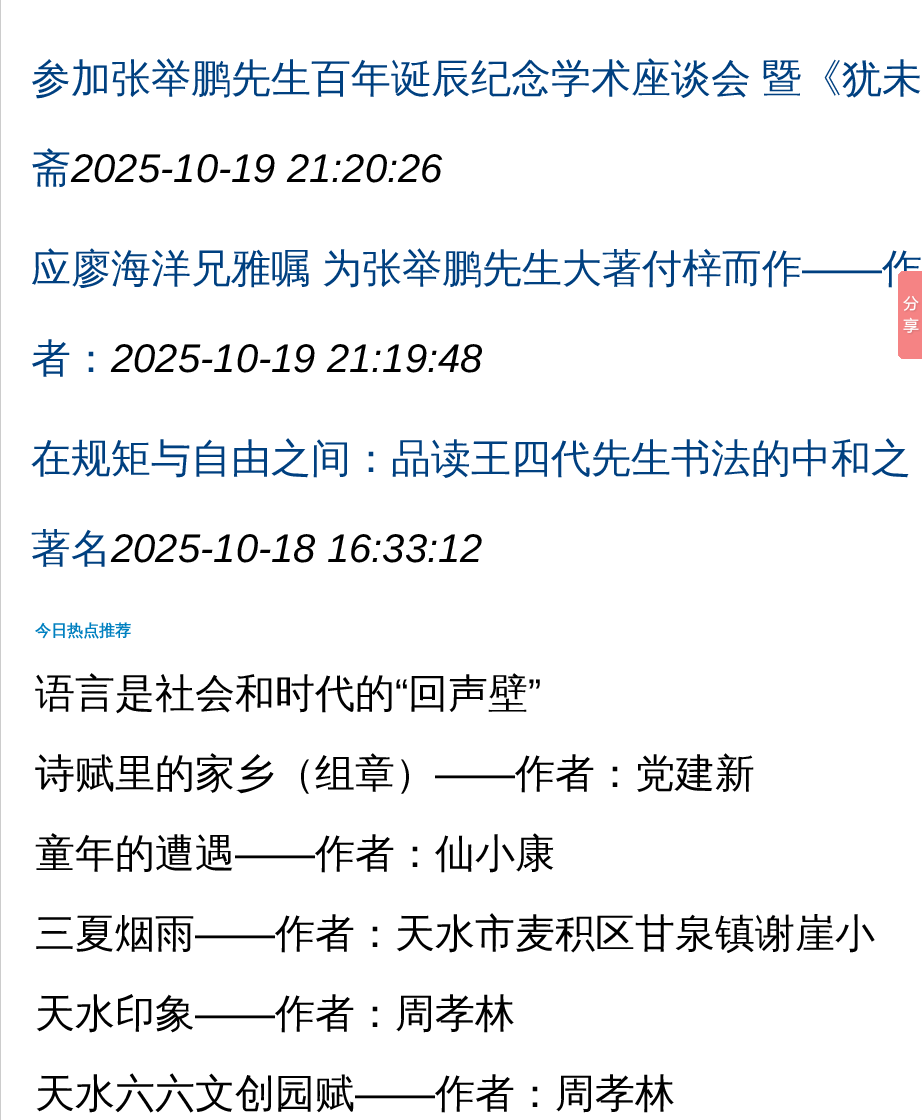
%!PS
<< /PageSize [922 1120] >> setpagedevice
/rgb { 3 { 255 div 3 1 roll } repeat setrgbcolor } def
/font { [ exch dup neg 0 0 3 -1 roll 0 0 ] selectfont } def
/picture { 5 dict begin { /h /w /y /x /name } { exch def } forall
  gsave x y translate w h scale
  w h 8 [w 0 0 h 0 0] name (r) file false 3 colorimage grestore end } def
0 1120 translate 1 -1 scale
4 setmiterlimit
255 255 255 rgb
0 0 922 1120 rectfill
204 204 204 rgb
0 0 1 1120 rectfill
/WenQuanYiZenHei-Medium 40 font
0 64 128 rgb
[
  [(参加张举鹏先生百年诞辰纪念学术座谈会) 31 92]
  [(暨《犹未) 762 92]
  [(斋) 31 182]
] { aload pop moveto show } forall
/LiberationSans-Italic 40 font
0 0 0 rgb
71 182 moveto (2025-10-19 21:20:26) show
/WenQuanYiZenHei-Medium 40 font
0 64 128 rgb
31 282 moveto (应廖海洋兄雅嘱) show
322 282 moveto (为张举鹏先生大著付梓而作) show
/LiberationSans-Regular 40 font
802 282 moveto (——) show
/WenQuanYiZenHei-Medium 40 font
882 282 moveto (作) show
31 372 moveto (者：) show
/LiberationSans-Italic 40 font
0 0 0 rgb
111 372 moveto (2025-10-19 21:19:48) show
/WenQuanYiZenHei-Medium 40 font
0 64 128 rgb
31 472 moveto (在规矩与自由之间：品读王四代先生书法的中和之) show
31 562 moveto (著名) show
/LiberationSans-Italic 40 font
0 0 0 rgb
111 562 moveto (2025-10-18 16:33:12) show
/WenQuanYiZenHei-Bold 16 font
0 128 192 rgb
35 636 moveto (今日热点推荐) show
/WenQuanYiZenHei-Medium 40 font
0 0 0 rgb
35 707 moveto (语言是社会和时代的) show
/LiberationSans-Regular 40 font
395 707 moveto (“) show
/WenQuanYiZenHei-Medium 40 font
408 707 moveto (回声壁) show
/LiberationSans-Regular 40 font
528 707 moveto (”) show
/WenQuanYiZenHei-Medium 40 font
35 787 moveto (诗赋里的家乡（组章）) show
/LiberationSans-Regular 40 font
435 787 moveto (——) show
/WenQuanYiZenHei-Medium 40 font
515 787 moveto (作者：党建新) show
35 867 moveto (童年的遭遇) show
/LiberationSans-Regular 40 font
235 867 moveto (——) show
/WenQuanYiZenHei-Medium 40 font
315 867 moveto (作者：仙小康) show
35 947 moveto (三夏烟雨) show
/LiberationSans-Regular 40 font
195 947 moveto (——) show
/WenQuanYiZenHei-Medium 40 font
275 947 moveto (作者：天水市麦积区甘泉镇谢崖小) show
35 1027 moveto (天水印象) show
/LiberationSans-Regular 40 font
195 1027 moveto (——) show
/WenQuanYiZenHei-Medium 40 font
275 1027 moveto (作者：周孝林) show
35 1107 moveto (天水六六文创园赋) show
/LiberationSans-Regular 40 font
355 1107 moveto (——) show
/WenQuanYiZenHei-Medium 40 font
435 1107 moveto (作者：周孝林) show
(img/1.rgb) 898 271 24 88 picture
showpage
